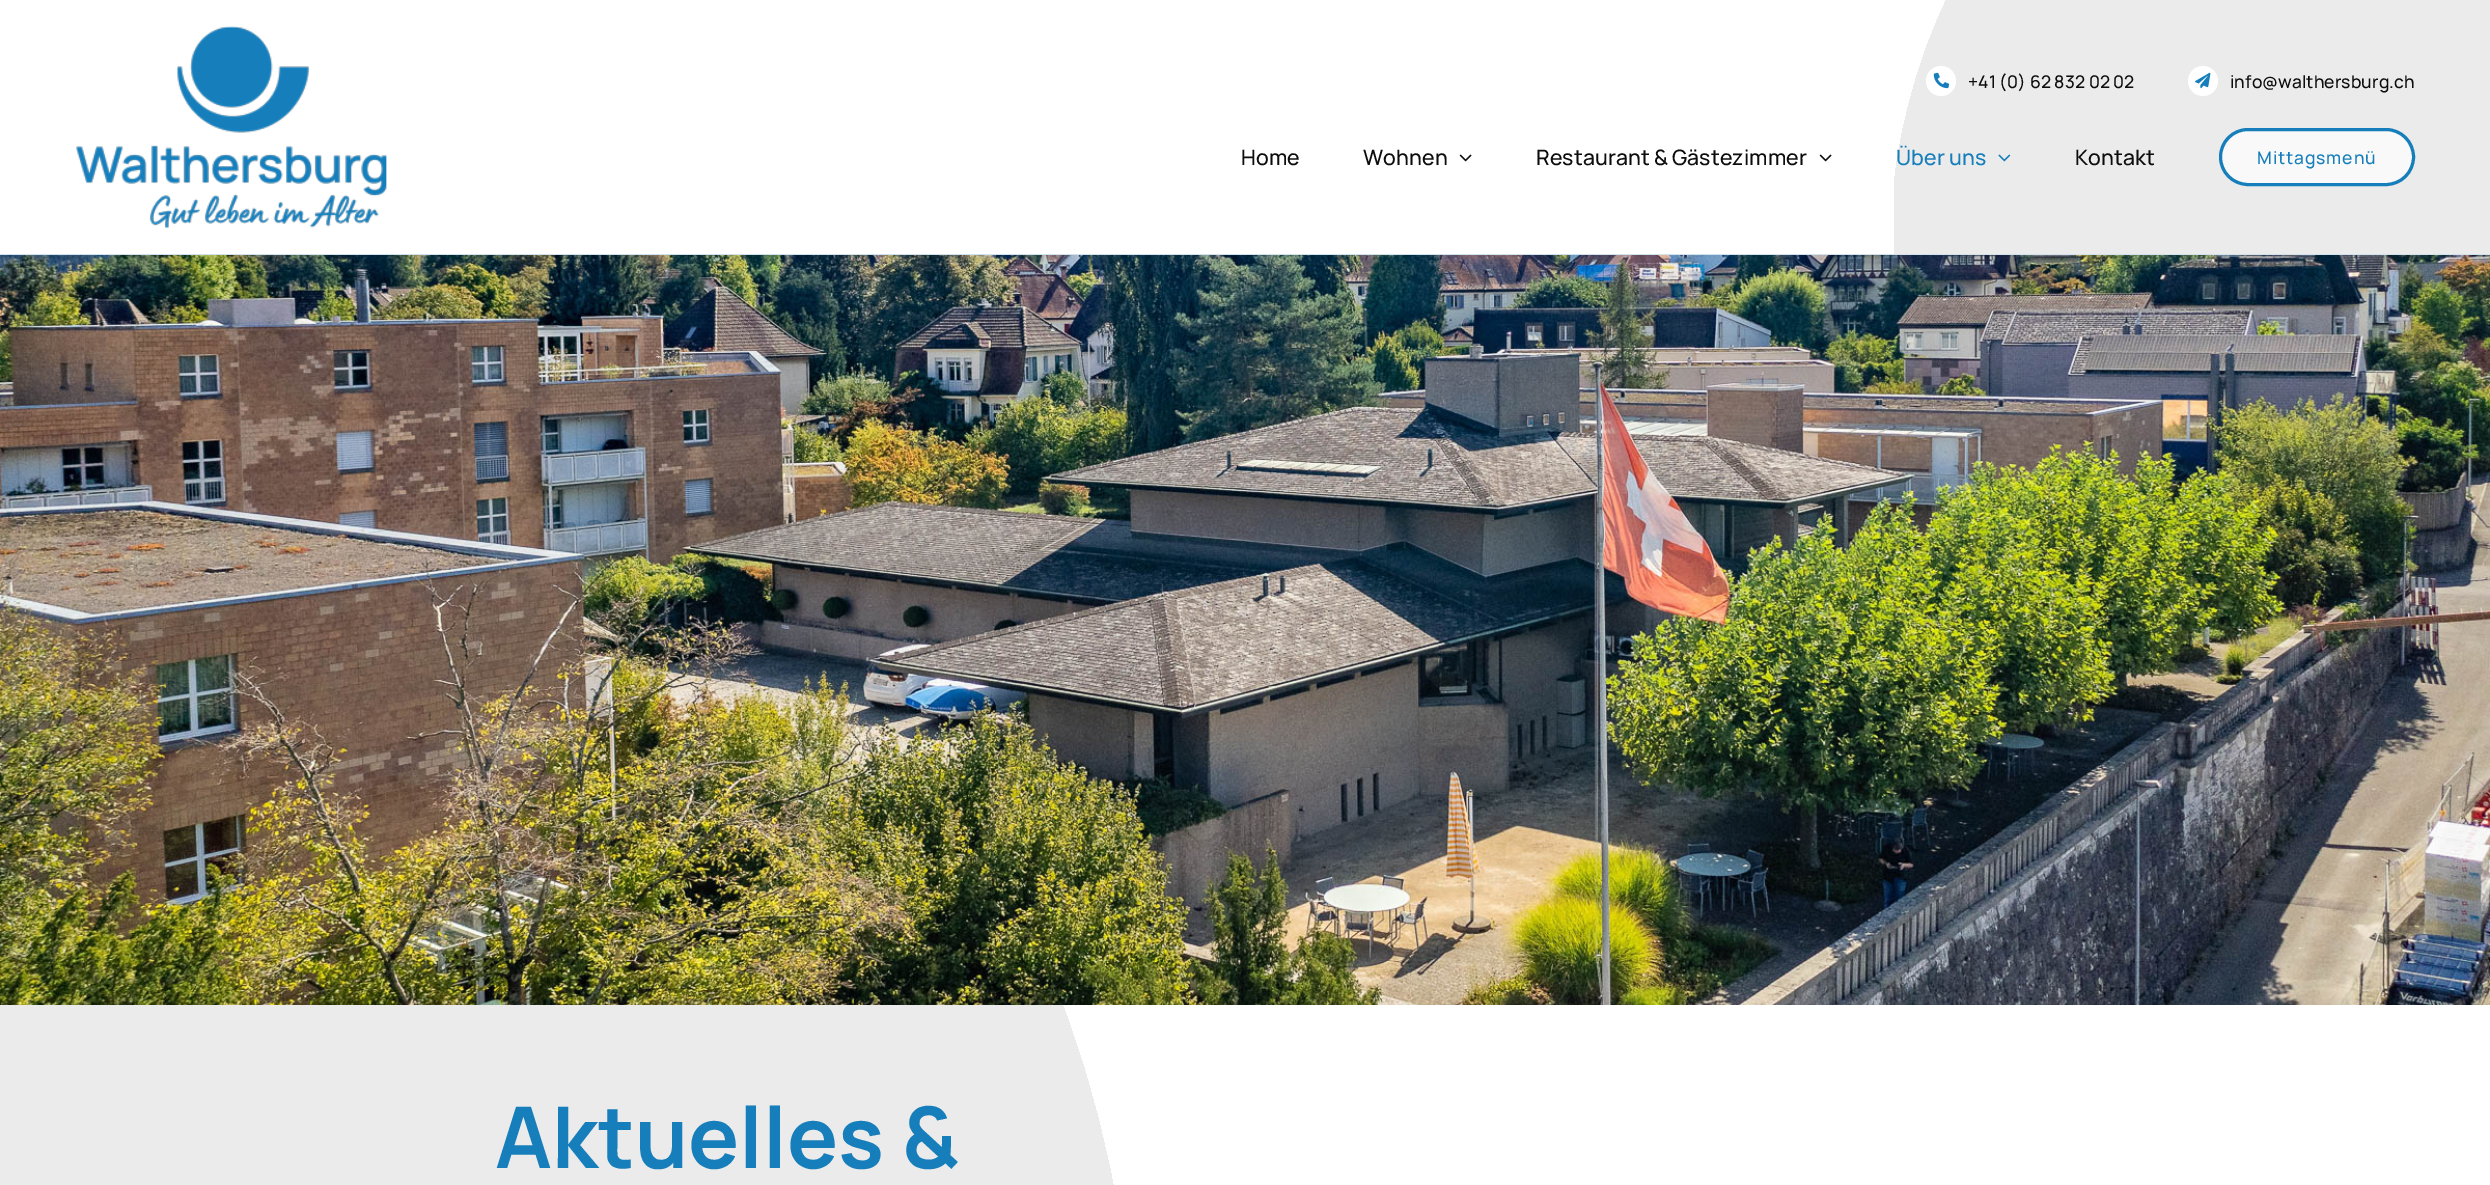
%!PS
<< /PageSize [2490 1185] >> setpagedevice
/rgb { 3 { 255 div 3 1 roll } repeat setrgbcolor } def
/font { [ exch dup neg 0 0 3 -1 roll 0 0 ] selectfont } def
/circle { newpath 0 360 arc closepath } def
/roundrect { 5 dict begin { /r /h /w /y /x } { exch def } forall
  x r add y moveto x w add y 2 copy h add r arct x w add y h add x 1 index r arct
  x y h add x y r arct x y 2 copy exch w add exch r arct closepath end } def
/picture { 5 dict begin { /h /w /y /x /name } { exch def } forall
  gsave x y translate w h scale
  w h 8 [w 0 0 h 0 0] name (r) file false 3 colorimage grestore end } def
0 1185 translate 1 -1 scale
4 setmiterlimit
255 255 255 rgb
0 0 2490 1185 rectfill
gsave 1894 0 moveto 2490 0 lineto 2490 254 lineto 1894 254 lineto closepath clip newpath 2490 254 translate 2503 2503 scale
<< /ShadingType 3 /ColorSpace /DeviceRGB /Coords [0 0 0 0 0 1] /Extend [true true] /Function << /FunctionType 3 /Domain [0 1] /Functions [<< /FunctionType 2 /Domain [0 1] /C0 [0.922 0.922 0.922] /C1 [0.922 0.922 0.922] /N 1 >> << /FunctionType 2 /Domain [0 1] /C0 [1 1 1] /C1 [1 1 1] /N 1 >>] /Bounds [0.24] /Encode [0 1 0 1] >> >> shfill grestore
208 226 237 rgb
0 254 2490 1 rectfill
(img/1.rgb) 76 26 311 203 picture
255 255 255 rgb
1941 81 15 circle fill
(img/2.rgb) 1933 72 17 17 picture
2203 81 15 circle fill
(img/3.rgb) 2195 72 16 17 picture
(img/4.rgb) 1459 154 13 8 picture
(img/4.rgb) 1819 154 13 8 picture
(img/5.rgb) 1998 154 13 8 picture
249 249 249 rgb
2220.5 129.5 193 55 27.5 roundrect gsave fill grestore
22 126 187 rgb
3 setlinewidth
stroke
(img/6.rgb) 0 255 2490 750 picture
gsave 0 1005 moveto 1114 1005 lineto 1114 1185 lineto 0 1185 lineto closepath clip newpath 0 1401 translate 2521 2521 scale
<< /ShadingType 3 /ColorSpace /DeviceRGB /Coords [0 0 0 0 0 1] /Extend [true true] /Function << /FunctionType 3 /Domain [0 1] /Functions [<< /FunctionType 2 /Domain [0 1] /C0 [0.922 0.922 0.922] /C1 [0.922 0.922 0.922] /N 1 >> << /FunctionType 2 /Domain [0 1] /C0 [1 1 1] /C1 [1 1 1] /N 1 >>] /Bounds [0.45] /Encode [0 1 0 1] >> >> shfill grestore
/Manrope-Medium 17.5 font
13 13 13 rgb
1968 88 moveto 0.1 0 (+41 \(0\) 62 832 02 02) ashow
2230 88 moveto 0.1 0 (info@walthersburg.ch) ashow
/Manrope-Medium 21.25 font
1241 165 moveto 0.1 0 (Home) ashow
1363 165 moveto 0.1 0 (Wohnen) ashow
1536 165 moveto 0.1 0 (Restaurant & Gästezimmer) ashow
22 126 187 rgb
1896 165 moveto 0.1 0 (Über uns) ashow
13 13 13 rgb
2075 165 moveto 0.1 0 (Kontakt) ashow
/Manrope-Medium 17.5 font
22 126 187 rgb
2257 164 moveto 0.9 0 (Mittagsmenü) ashow
/Manrope-Bold 85 font
495 1168 moveto 0.1 0 (Aktuelles &) ashow
showpage
